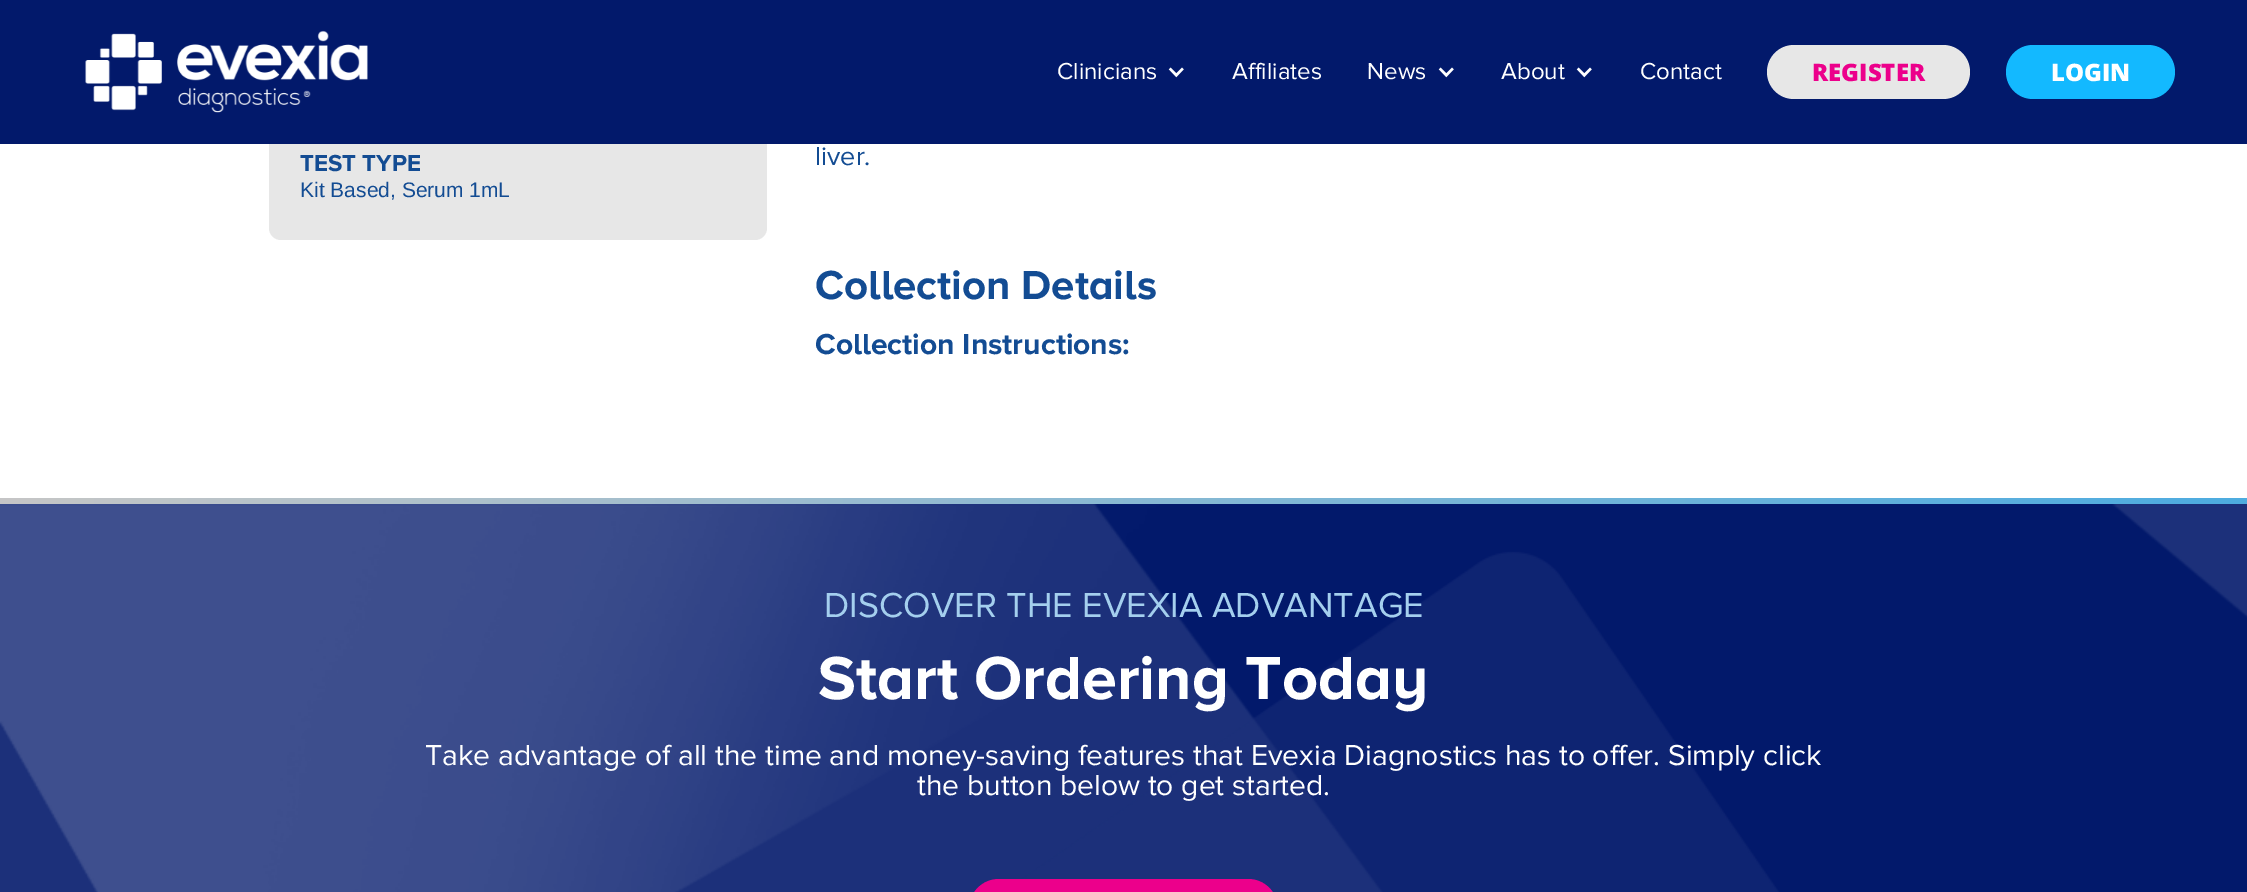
%!PS
<< /PageSize [2247 892] >> setpagedevice
/rgb { 3 { 255 div 3 1 roll } repeat setrgbcolor } def
/font { [ exch dup neg 0 0 3 -1 roll 0 0 ] selectfont } def
/roundrect { 5 dict begin { /r /h /w /y /x } { exch def } forall
  x r add y moveto x w add y 2 copy h add r arct x w add y h add x 1 index r arct
  x y h add x y r arct x y 2 copy exch w add exch r arct closepath end } def
/picture { 5 dict begin { /h /w /y /x /name } { exch def } forall
  gsave x y translate w h scale
  w h 8 [w 0 0 h 0 0] name (r) file false 3 colorimage grestore end } def
0 892 translate 1 -1 scale
4 setmiterlimit
255 255 255 rgb
0 0 2247 892 rectfill
231 231 231 rgb
269 42 498 198 12 roundrect fill
2 25 107 rgb
0 0 2247 144 rectfill
(img/1.rgb) 85 30 283 83 picture
(img/2.rgb) 1168 67 16 11 picture
(img/2.rgb) 1438 67 16 11 picture
(img/2.rgb) 1576 67 16 11 picture
231 231 231 rgb
1767 45 203 54 27 roundrect fill
19 185 255 rgb
2006 45 169 54 27 roundrect fill
gsave 0 498 moveto 2247 498 lineto 2247 504 lineto 0 504 lineto closepath clip newpath
<< /ShadingType 2 /ColorSpace /DeviceRGB /Coords [0 501 2247 501] /Extend [true true] /Function << /FunctionType 2 /Domain [0 1] /C0 [0.776 0.776 0.776] /C1 [0.302 0.675 0.878] /N 1 >> >> shfill grestore
2 25 107 rgb
0 504 2247 388 rectfill
(img/3.rgb) 0 504 2247 388 picture
236 0 139 rgb
969 879 309 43 30 roundrect fill
/ProximaNova-Regular 24 font
255 255 255 rgb
[
  [(Clinicians) 1057 79]
  [(Affiliates) 1232 79]
  [(News) 1367 79]
  [(About) 1501 79]
  [(Contact) 1640 79]
] { aload pop moveto show } forall
/OpenSans-ExtraBold 24 font
236 0 139 rgb
1812 81 moveto (REGISTER) show
255 255 255 rgb
2051 81 moveto (LOGIN) show
/ProximaNova-Bold 24 font
19 76 147 rgb
300 171 moveto (TEST TYPE) show
/LiberationSans-Regular 21 font
300 197 moveto (Kit Based, Serum 1mL) show
/ProximaNova-Regular 27 font
815 165 moveto (liver.) show
/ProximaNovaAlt-Bold 42 font
815 299 moveto (Collection Details) show
/ProximaNovaAlt-Bold 30 font
815 354 moveto (Collection Instructions:) show
/ProximaNova-Regular 36 font
164 207 238 rgb
824 617 moveto (DISCOVER THE EVEXIA ADVANTAGE) show
/ProximaNovaAlt-Bold 63 font
255 255 255 rgb
818 699 moveto (Start Ordering Today) show
/ProximaNova-Regular 30 font
425 765 moveto (Take advantage of all the time and money-saving features that Evexia Diagnostics has to offer. Simply click) show
917 795 moveto (the button below to get started.) show
showpage
